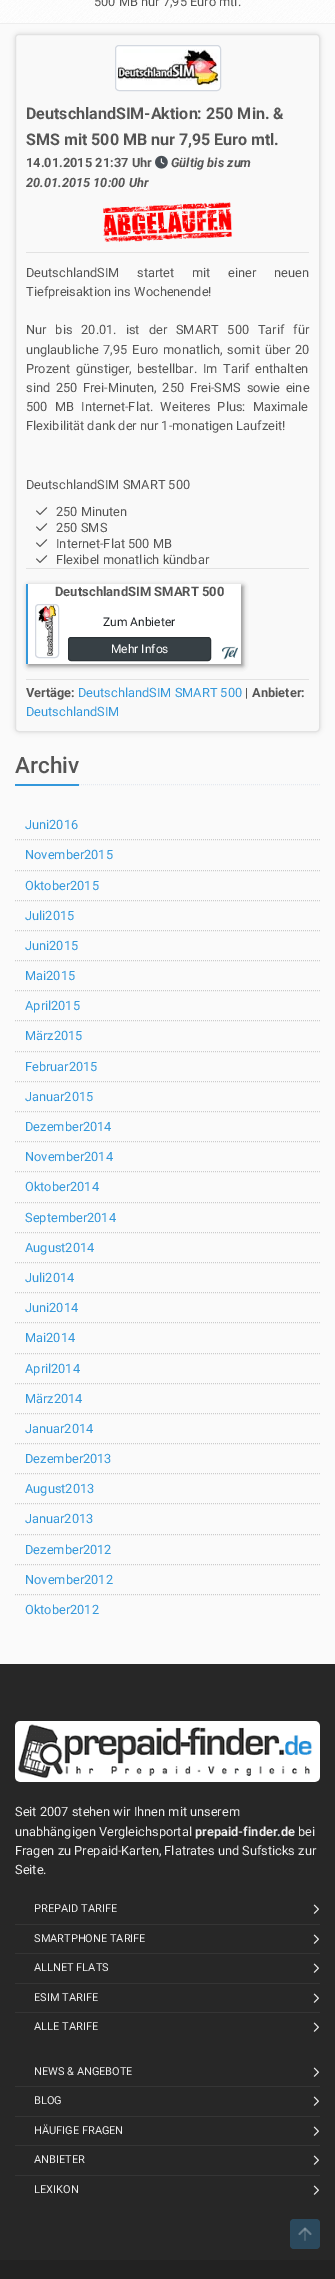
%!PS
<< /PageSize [335 2279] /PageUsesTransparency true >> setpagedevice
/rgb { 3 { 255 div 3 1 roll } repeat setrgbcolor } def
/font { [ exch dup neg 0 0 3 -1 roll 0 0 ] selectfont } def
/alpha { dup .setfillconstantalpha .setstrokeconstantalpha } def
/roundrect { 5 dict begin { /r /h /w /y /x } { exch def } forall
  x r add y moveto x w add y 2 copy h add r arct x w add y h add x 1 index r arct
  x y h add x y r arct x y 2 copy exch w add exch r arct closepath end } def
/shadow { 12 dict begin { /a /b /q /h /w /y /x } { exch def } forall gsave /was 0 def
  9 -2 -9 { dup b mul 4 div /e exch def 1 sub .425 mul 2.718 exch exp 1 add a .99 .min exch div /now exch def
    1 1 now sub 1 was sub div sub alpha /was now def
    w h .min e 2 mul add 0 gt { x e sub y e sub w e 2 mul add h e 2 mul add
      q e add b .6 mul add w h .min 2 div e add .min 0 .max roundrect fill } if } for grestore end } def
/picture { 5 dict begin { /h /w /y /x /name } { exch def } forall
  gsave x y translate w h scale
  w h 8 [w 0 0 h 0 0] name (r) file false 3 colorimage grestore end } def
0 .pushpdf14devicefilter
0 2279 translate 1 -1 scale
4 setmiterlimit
250 250 250 rgb
0 0 335 2279 rectfill
(img/1.rgb) 0 0 335 23 picture
238 238 238 rgb
0 23 335 1 rectfill
218 218 218 rgb
15 34 305 698 4 2.5 1 shadow
249 249 249 rgb
15.5 34.5 304 697 3.5 roundrect gsave fill grestore
226 226 226 rgb
stroke
26 252 283 1 rectfill
255 255 255 rgb
115 45 106 46 4 roundrect fill
(img/2.rgb) 117 49 103 37 picture
211 216 224 rgb
115.5 45.5 105 45 3.5 roundrect stroke
(img/3.rgb) 155 155 13 14 picture
(img/4.rgb) 103 202 129 40 picture
(img/5.rgb) 36 507 12 8 picture
(img/5.rgb) 36 523 12 8 picture
(img/5.rgb) 36 539 12 8 picture
(img/5.rgb) 36 555 12 8 picture
226 226 226 rgb
26 568 283 1 rectfill
136 136 136 rgb
28 586 215 80 0 2.5 1 shadow
255 255 255 rgb
28 584 213 80 rectfill
52 152 219 rgb
26 584 2 80 rectfill
(img/6.rgb) 35 604 22 52 picture
211 216 224 rgb
35.5 654 moveto 35.5 608 lineto 35.5 606 37 604.5 39 604.5 curveto 55 604.5 lineto 57 604.5 58.5 606 58.5 608 curveto 58.5 654 lineto 58.5 656 57 657.5 55 657.5 curveto 39 657.5 lineto 37 657.5 35.5 656 35.5 654 curveto closepath stroke
55 64 69 rgb
68.5 637.5 142 23 2.5 roundrect gsave fill grestore
44 51 55 rgb
stroke
(img/7.rgb) 222 646 16 14 picture
226 226 226 rgb
26 679 283 1 rectfill
228 233 240 rgb
[1 1] 0 setdash
15 784.5 moveto 320 784.5 lineto stroke
52 152 219 rgb
15 784 64 2 rectfill
204 204 204 rgb
15 839.5 moveto 320 839.5 lineto stroke
15 870.5 moveto 320 870.5 lineto stroke
15 900.5 moveto 320 900.5 lineto stroke
15 930.5 moveto 320 930.5 lineto stroke
15 960.5 moveto 320 960.5 lineto stroke
15 990.5 moveto 320 990.5 lineto stroke
15 1020.5 moveto 320 1020.5 lineto stroke
15 1051.5 moveto 320 1051.5 lineto stroke
15 1081.5 moveto 320 1081.5 lineto stroke
15 1111.5 moveto 320 1111.5 lineto stroke
15 1141.5 moveto 320 1141.5 lineto stroke
15 1171.5 moveto 320 1171.5 lineto stroke
15 1202.5 moveto 320 1202.5 lineto stroke
15 1232.5 moveto 320 1232.5 lineto stroke
15 1262.5 moveto 320 1262.5 lineto stroke
15 1292.5 moveto 320 1292.5 lineto stroke
15 1322.5 moveto 320 1322.5 lineto stroke
15 1353.5 moveto 320 1353.5 lineto stroke
15 1383.5 moveto 320 1383.5 lineto stroke
15 1413.5 moveto 320 1413.5 lineto stroke
15 1443.5 moveto 320 1443.5 lineto stroke
15 1473.5 moveto 320 1473.5 lineto stroke
15 1503.5 moveto 320 1503.5 lineto stroke
15 1534.5 moveto 320 1534.5 lineto stroke
15 1564.5 moveto 320 1564.5 lineto stroke
15 1594.5 moveto 320 1594.5 lineto stroke
39 39 39 rgb
0 1664 335 596 rectfill
(img/8.rgb) 15 1721 305 61 picture
(img/9.rgb) 313 1904 6 10 picture
53 53 53 rgb
15 1924 305 1 rectfill
(img/9.rgb) 313 1934 6 10 picture
15 1953 305 1 rectfill
(img/9.rgb) 313 1963 6 10 picture
15 1983 305 1 rectfill
(img/9.rgb) 313 1993 6 10 picture
15 2012 305 1 rectfill
(img/9.rgb) 313 2022 6 10 picture
(img/9.rgb) 313 2067 6 10 picture
15 2086 305 1 rectfill
(img/9.rgb) 313 2096 6 10 picture
15 2116 305 1 rectfill
(img/9.rgb) 313 2126 6 10 picture
15 2145 305 1 rectfill
(img/9.rgb) 313 2155 6 10 picture
15 2175 305 1 rectfill
(img/9.rgb) 313 2185 6 10 picture
34 34 34 rgb
0 2260 335 19 rectfill
43 73 93 rgb
290 2219 30 30 4 roundrect fill
(img/10.rgb) 298 2227 14 14 picture
/Roboto-Regular 12.8 font
85 85 85 rgb
94 6 moveto (500 MB nur 7,95 Euro mtl.) show
/Roboto-Bold 16 font
26 119 moveto (DeutschlandSIM-Aktion: 250 Min. &) show
26 145 moveto (SMS mit 500 MB nur 7,95 Euro mtl.) show
/Roboto-Bold 12.8 font
26 167 moveto (14.01.2015 21:37 Uhr) show
/Roboto-BoldItalic 12.8 font
171 167 moveto (Gültig bis zum) show
26 187 moveto (20.01.2015 10:00 Uhr) show
/Roboto-Regular 12.8 font
26 277 moveto 14.5 0 32 (DeutschlandSIM startet mit einer neuen) widthshow
26 296 moveto (Tiefpreisaktion ins Wochenende!) show
26 334 moveto 5.75 0 32 (Nur bis 20.01. ist der SMART 500 Tarif für) widthshow
26 354 moveto 1.75 0 32 (unglaubliche 7,95 Euro monatlich, somit über 20) widthshow
26 373 moveto 2.5 0 32 (Prozent günstiger, bestellbar. Im Tarif enthalten) widthshow
26 392 moveto 2.5 0 32 (sind 250 Frei-Minuten, 250 Frei-SMS sowie eine) widthshow
26 411 moveto 4 0 32 (500 MB Internet-Flat. Weiteres Plus: Maximale) widthshow
[
  [(Flexibilität dank der nur 1-monatigen Laufzeit!) 26 430]
  [(DeutschlandSIM SMART 500) 26 489]
  [(250 Minuten) 56 516]
  [(250 SMS) 56 532]
  [(Internet-Flat 500 MB) 56 548]
  [(Flexibel monatlich kündbar) 56 564]
] { aload pop moveto show } forall
/Roboto-Bold 13 font
55 596 moveto (DeutschlandSIM SMART 500) show
/Roboto-Regular 12 font
33 37 41 rgb
103 626 moveto (Zum Anbieter) show
255 255 255 rgb
111 653 moveto (Mehr Infos) show
/Roboto-Bold 12.8 font
85 85 85 rgb
26 697 moveto (Vertäge:) show
/Roboto-Regular 12.8 font
52 152 219 rgb
78 697 moveto (DeutschlandSIM SMART 500) show
85 85 85 rgb
245 697 moveto (|) show
/Roboto-Bold 12.8 font
252 697 moveto (Anbieter:) show
/Roboto-Regular 12.8 font
52 152 219 rgb
26 716 moveto (DeutschlandSIM) show
/Roboto-Medium 22.5 font
85 85 85 rgb
15 773 moveto (Archiv) show
/Roboto-Regular 12.8 font
52 152 219 rgb
[
  [(Juni2016) 25 829]
  [(November2015) 25 859]
  [(Oktober2015) 25 890]
  [(Juli2015) 25 920]
  [(Juni2015) 25 950]
  [(Mai2015) 25 980]
  [(April2015) 25 1010]
  [(März2015) 25 1040]
  [(Februar2015) 25 1071]
  [(Januar2015) 25 1101]
  [(Dezember2014) 25 1131]
  [(November2014) 25 1161]
  [(Oktober2014) 25 1191]
  [(September2014) 25 1222]
  [(August2014) 25 1252]
  [(Juli2014) 25 1282]
  [(Juni2014) 25 1312]
  [(Mai2014) 25 1342]
  [(April2014) 25 1373]
  [(März2014) 25 1403]
  [(Januar2014) 25 1433]
  [(Dezember2013) 25 1463]
  [(August2013) 25 1493]
  [(Januar2013) 25 1523]
  [(Dezember2012) 25 1554]
  [(November2012) 25 1584]
  [(Oktober2012) 25 1614]
] { aload pop moveto show } forall
238 238 238 rgb
15 1816 moveto (Seit 2007 stehen wir Ihnen mit unserem) show
15 1836 moveto (unabhängigen Vergleichsportal) show
/Roboto-Bold 12.8 font
195 1836 moveto (prepaid-finder.de) show
/Roboto-Regular 12.8 font
[
  [(bei) 298 1836]
  [(Fragen zu Prepaid-Karten, Flatrates und Sufsticks zur) 15 1855]
  [(Seite.) 15 1874]
] { aload pop moveto show } forall
/Roboto-Regular 11 font
[
  [(PREPAID TARIFE) 34 1912]
  [(SMARTPHONE TARIFE) 34 1942]
  [(ALLNET FLATS) 34 1971]
  [(ESIM TARIFE) 34 2001]
  [(ALLE TARIFE) 34 2030]
  [(NEWS & ANGEBOTE) 34 2075]
  [(BLOG) 34 2104]
  [(HÄUFIGE FRAGEN) 34 2134]
  [(ANBIETER) 34 2163]
  [(LEXIKON) 34 2193]
] { aload pop moveto show } forall
.poppdf14devicefilter showpage
